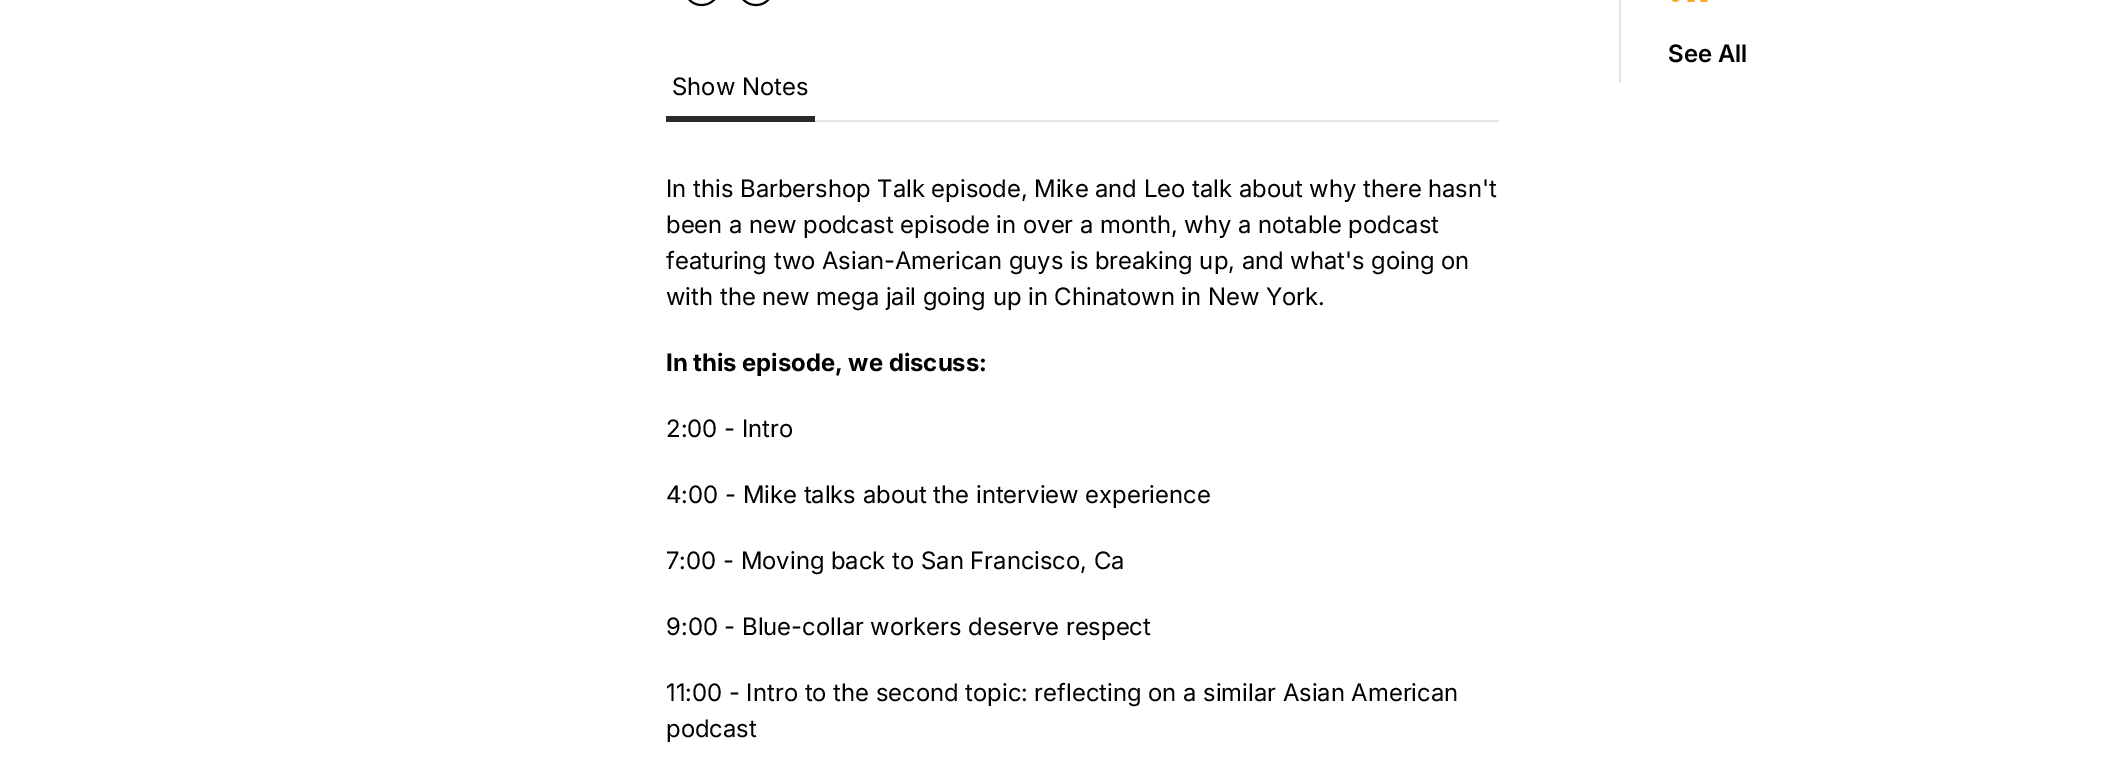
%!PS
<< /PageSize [2104 774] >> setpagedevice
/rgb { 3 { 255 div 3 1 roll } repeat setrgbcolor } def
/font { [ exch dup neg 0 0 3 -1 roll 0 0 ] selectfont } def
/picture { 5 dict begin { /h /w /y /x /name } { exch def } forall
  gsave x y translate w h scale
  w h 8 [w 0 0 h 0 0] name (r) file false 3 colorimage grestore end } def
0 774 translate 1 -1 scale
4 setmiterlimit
255 255 255 rgb
0 0 2104 774 rectfill
228 229 230 rgb
1619 0 2 83 rectfill
(img/1.rgb) 1671 0 37 2 picture
(img/2.rgb) 688 0 28 7 picture
(img/3.rgb) 742 0 28 7 picture
815 120 684 2 rectfill
43 42 42 rgb
666 116 149 6 rectfill
/Inter-SemiBold 24 font
0 0 0 rgb
1668 62 moveto (See All) show
/Inter-Regular 24 font
[
  [(Show Notes) 672 95]
  [(In this Barbershop Talk episode, Mike and Leo talk about why there hasn't) 666 197]
  [(been a new podcast episode in over a month, why a notable podcast) 666 233]
  [(featuring two Asian-American guys is breaking up, and what's going on) 666 269]
  [(with the new mega jail going up in Chinatown in New York.) 666 305]
] { aload pop moveto show } forall
/Inter-Bold 24 font
666 371 moveto (In this episode, we discuss:) show
/Inter-Regular 24 font
[
  [(2:00 - Intro) 666 437]
  [(4:00 - Mike talks about the interview experience) 666 503]
  [(7:00 - Moving back to San Francisco, Ca) 666 569]
  [(9:00 - Blue-collar workers deserve respect) 666 635]
  [(11:00 - Intro to the second topic: reflecting on a similar Asian American) 666 701]
  [(podcast) 666 737]
] { aload pop moveto show } forall
showpage
